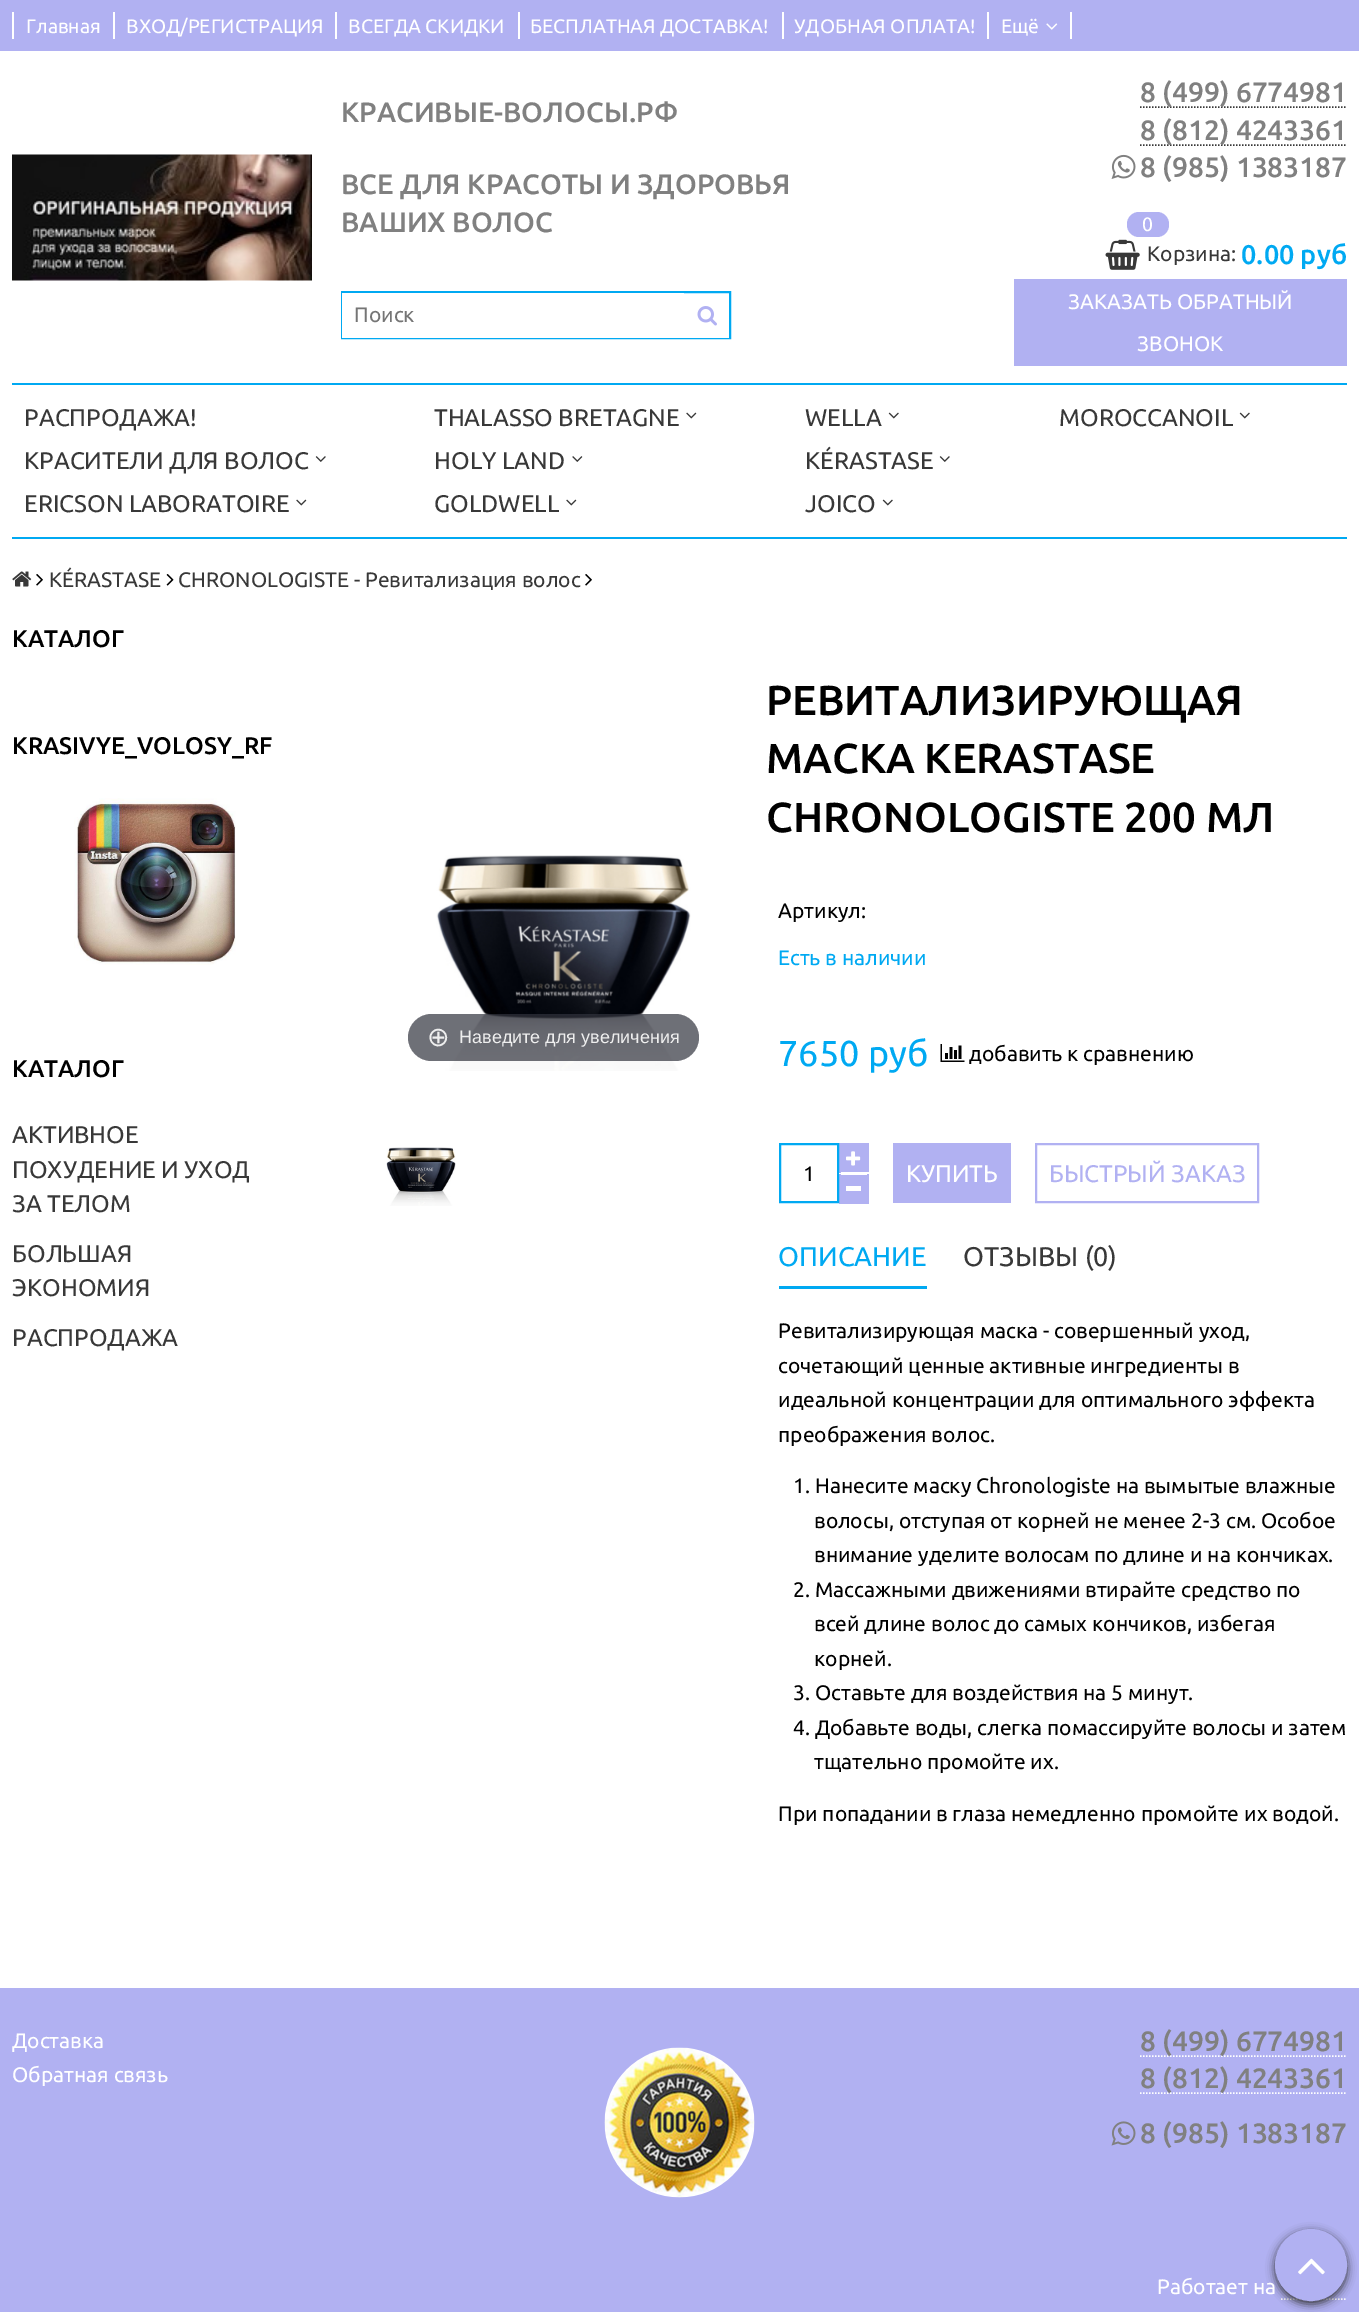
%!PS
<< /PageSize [1359 2312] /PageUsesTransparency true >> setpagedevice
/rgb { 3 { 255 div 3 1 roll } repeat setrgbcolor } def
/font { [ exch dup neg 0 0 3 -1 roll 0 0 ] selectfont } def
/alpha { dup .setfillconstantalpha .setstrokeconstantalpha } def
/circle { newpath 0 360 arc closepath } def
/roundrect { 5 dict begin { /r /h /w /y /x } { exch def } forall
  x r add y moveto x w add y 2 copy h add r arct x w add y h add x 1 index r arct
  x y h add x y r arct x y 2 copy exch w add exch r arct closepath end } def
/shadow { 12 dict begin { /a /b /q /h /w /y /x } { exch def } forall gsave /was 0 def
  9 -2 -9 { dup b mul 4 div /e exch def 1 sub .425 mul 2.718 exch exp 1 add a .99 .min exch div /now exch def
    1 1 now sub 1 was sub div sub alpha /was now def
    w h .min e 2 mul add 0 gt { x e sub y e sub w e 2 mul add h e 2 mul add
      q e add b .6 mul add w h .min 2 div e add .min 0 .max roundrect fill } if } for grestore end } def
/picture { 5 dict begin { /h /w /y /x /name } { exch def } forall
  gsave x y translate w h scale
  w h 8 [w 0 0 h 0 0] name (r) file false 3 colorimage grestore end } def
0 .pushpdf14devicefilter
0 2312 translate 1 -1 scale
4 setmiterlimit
177 177 242 rgb
0 0 1359 2312 rectfill
[
  [0 51 1359 1937 255 255 255]
  [12 12 2 27 255 255 255]
  [113 12 2 27 255 255 255]
  [335 12 2 27 255 255 255]
  [518 12 2 27 255 255 255]
  [782 12 2 27 255 255 255]
  [1070 12 2 27 255 255 255]
  [987 12 2 27 255 255 255]
] { aload pop rgb rectfill } forall
(img/1.rgb) 1046 23 12 7 picture
(img/2.rgb) 12 154 300 127 picture
0 169 242 rgb
2 setlinewidth
342 292 388 46 rectstroke
255 255 255 rgb
342 293 342 45 rectfill
684 337 45 1 rectfill
(img/3.rgb) 697 306 20 20 picture
56 56 56 rgb
1.5 setlinewidth
[1.5 1.5] 0 setdash
1140 107 moveto 1347 107 lineto stroke
1140 145 moveto 1347 145 lineto stroke
(img/4.rgb) 1111 154 25 25 picture
177 177 242 rgb
1127 212 42 25 12 roundrect fill
(img/5.rgb) 1105 239 35 31 picture
[
  [1014 279 333 87 177 177 242]
  [12 383 1335 2 0 169 242]
  [12 537 1335 2 0 169 242]
] { aload pop rgb rectfill } forall
(img/6.rgb) 686 412 11 7 picture
(img/7.rgb) 888 412 11 7 picture
(img/7.rgb) 1239 412 11 7 picture
(img/8.rgb) 315 456 11 6 picture
(img/9.rgb) 572 456 11 6 picture
(img/8.rgb) 939 456 11 6 picture
(img/6.rgb) 296 499 11 7 picture
(img/6.rgb) 566 499 11 7 picture
(img/7.rgb) 882 499 11 7 picture
(img/10.rgb) 12 571 20 16 picture
(img/11.rgb) 36 574 7 12 picture
(img/12.rgb) 166 574 8 12 picture
(img/11.rgb) 585 574 7 12 picture
(img/13.rgb) 74 798 162 167 picture
(img/14.rgb) 436 855 255 216 picture
0.7 alpha
49 51 61 rgb
408 1014 291 47 23.5 roundrect fill
1 alpha
(img/15.rgb) 386 1147 70 59 picture
(img/16.rgb) 940 1044 25 18 picture
[
  [841 1175 26 27 177 177 242]
  [867 1173 2 30 177 177 242]
  [839 1202 30 2 177 177 242]
  [839 1143 2 60 177 177 242]
  [846 1186 15 5 255 255 255]
] { aload pop rgb rectfill } forall
0 169 242 rgb
2 setlinewidth
[] 0 setdash
780 1144 58 58 rectstroke
177 177 242 rgb
841 1143 28 29 rectfill
255 255 255 rgb
839 1173 30 1 rectfill
(img/17.rgb) 846 1151 15 15 picture
177 177 242 rgb
893 1143 118 60 rectfill
1036 1144 222 58 rectstroke
0 169 242 rgb
779 1286 148 3 rectfill
(img/18.rgb) 604 2047 151 151 picture
255 255 255 rgb
1.5 setlinewidth
[1.5 1.5] 0 setdash
1140 2056 moveto 1347 2056 lineto stroke
1140 2093 moveto 1347 2093 lineto stroke
(img/19.rgb) 1111 2121 25 25 picture
1281 2299 moveto 1347 2299 lineto stroke
51 51 51 rgb
1275 2232 72 72 36 4.5 1 shadow
177 177 242 rgb
1311 2265 35 circle gsave fill grestore
2 setlinewidth
[] 0 setdash
stroke
(img/20.rgb) 1298 2258 27 17 picture
/Ubuntu-Regular 19.5 font
255 255 255 rgb
[
  [(Главная) 26 33]
  [(ВХОД/РЕГИСТРАЦИЯ) 126 33]
  [(ВСЕГДА СКИДКИ) 348 33]
  [(БЕСПЛАТНАЯ ДОСТАВКА!) 530 33]
  [(УДОБНАЯ ОПЛАТА!) 794 33]
  [(Ещё) 1001 33]
] { aload pop moveto show } forall
/Ubuntu-Medium 28 font
128 128 128 rgb
[
  [(КРАСИВЫЕ-ВОЛОСЫ.РФ) 341 122]
  [(ВСЕ ДЛЯ КРАСОТЫ И ЗДОРОВЬЯ) 341 194]
  [(ВАШИХ ВОЛОС) 341 232]
] { aload pop moveto show } forall
/Ubuntu-Regular 21 font
117 117 117 rgb
354 322 moveto (Поиск) show
/Ubuntu-Medium 28 font
128 128 128 rgb
[
  [(8 \(499\) 6774981) 1140 102]
  [(8 \(812\) 4243361) 1140 140]
  [(8 \(985\) 1383187) 1140 177]
] { aload pop moveto show } forall
/Ubuntu-Regular 19.5 font
255 255 255 rgb
1142 231 moveto (0) show
/Ubuntu-Regular 21 font
56 56 56 rgb
1147 261 moveto (Корзина:) show
/Ubuntu-Medium 27 font
0 169 242 rgb
1241 264 moveto (0.00 руб) show
/Ubuntu-Regular 21 font
255 255 255 rgb
1068 309 moveto (ЗАКАЗАТЬ ОБРАТНЫЙ) show
1137 351 moveto (ЗВОНОК) show
/Ubuntu-Regular 24 font
56 56 56 rgb
[
  [(РАСПРОДАЖА!) 24 426]
  [(THALASSO BRETAGNE) 434 426]
  [(WELLA) 805 426]
  [(MOROCCANOIL) 1059 426]
  [(КРАСИТЕЛИ ДЛЯ ВОЛОС) 24 469]
  [(HOLY LAND) 434 469]
  [(KÉRASTASE) 805 469]
  [(ERICSON LABORATOIRE) 24 512]
  [(GOLDWELL) 434 512]
  [(JOICO) 805 512]
] { aload pop moveto show } forall
/Ubuntu-Regular 21 font
49 587 moveto (KÉRASTASE) show
178 587 moveto (CHRONOLOGISTE - Ревитализация волос) show
/Ubuntu-Medium 24 font
0 0 0 rgb
[
  [(КАТАЛОГ) 12 647]
  [(KRASIVYE_VOLOSY_RF) 12 754]
  [(КАТАЛОГ) 12 1077]
] { aload pop moveto show } forall
/Ubuntu-Regular 24 font
56 56 56 rgb
[
  [(АКТИВНОЕ) 12 1143]
  [(ПОХУДЕНИЕ И УХОД) 12 1178]
  [(ЗА ТЕЛОМ) 12 1212]
  [(БОЛЬШАЯ) 12 1262]
  [(ЭКОНОМИЯ) 12 1296]
  [(РАСПРОДАЖА) 12 1346]
] { aload pop moveto show } forall
/Ubuntu-Medium 42 font
0 0 0 rgb
[
  [(РЕВИТАЛИЗИРУЮЩАЯ) 766 715]
  [(МАСКА KERASTASE) 766 773]
  [(CHRONOLOGISTE 200 МЛ) 766 832]
] { aload pop moveto show } forall
/DejaVuSans-Regular 27 font
238 238 238 rgb
427 1046 moveto (⊕) show
/LiberationSans-Regular 18 font
459 1043 moveto (Наведите для увеличения) show
/Ubuntu-Regular 21 font
0 0 0 rgb
778 918 moveto (Артикул:) show
0 169 242 rgb
778 965 moveto (Есть в наличии) show
/Ubuntu-Regular 36 font
778 1066 moveto (7650 руб) show
/Ubuntu-Regular 21 font
0 0 0 rgb
969 1061 moveto (добавить к сравнению) show
803 1181 moveto (1) show
/Ubuntu-Regular 24 font
255 255 255 rgb
906 1182 moveto (КУПИТЬ) show
177 177 242 rgb
1049 1182 moveto (БЫСТРЫЙ ЗАКАЗ) show
/Ubuntu-Regular 27 font
0 169 242 rgb
778 1266 moveto (ОПИСАНИЕ) show
56 56 56 rgb
963 1266 moveto (ОТЗЫВЫ \(0\)) show
/Ubuntu-Regular 21 font
0 0 0 rgb
[
  [(Ревитализирующая маска - совершенный уход,) 778 1338]
  [(сочетающий ценные активные ингредиенты в) 778 1373]
  [(идеальной концентрации для оптимального эффекта) 778 1407]
  [(преображения волос.) 778 1442]
  [(1. Нанесите маску Chronologiste на вымытые влажные) 793 1493]
  [(волосы, отступая от корней не менее 2-3 см. Особое) 814 1528]
  [(внимание уделите волосам по длине и на кончиках.) 814 1562]
  [(2. Массажными движениями втирайте средство по) 793 1597]
  [(всей длине волос до самых кончиков, избегая) 814 1631]
  [(корней.) 814 1666]
  [(3. Оставьте для воздействия на 5 минут.) 793 1700]
  [(4. Добавьте воды, слегка помассируйте волосы и затем) 793 1735]
  [(тщательно промойте их.) 814 1769]
  [(При попадании в глаза немедленно промойте их водой.) 778 1821]
] { aload pop moveto show } forall
255 255 255 rgb
12 2048 moveto (Доставка) show
12 2082 moveto (Обратная связь) show
/Ubuntu-Medium 28 font
128 128 128 rgb
[
  [(8 \(499\) 6774981) 1140 2051]
  [(8 \(812\) 4243361) 1140 2088]
  [(8 \(985\) 1383187) 1140 2143]
] { aload pop moveto show } forall
/Ubuntu-Regular 21 font
255 255 255 rgb
1157 2294 moveto (Работает на) show
.poppdf14devicefilter showpage
